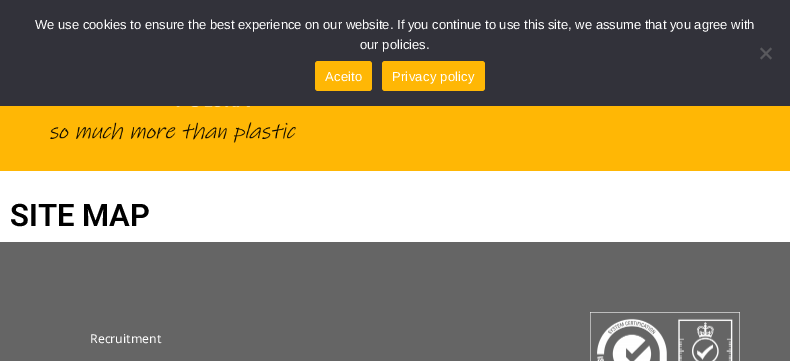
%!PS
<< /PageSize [790 361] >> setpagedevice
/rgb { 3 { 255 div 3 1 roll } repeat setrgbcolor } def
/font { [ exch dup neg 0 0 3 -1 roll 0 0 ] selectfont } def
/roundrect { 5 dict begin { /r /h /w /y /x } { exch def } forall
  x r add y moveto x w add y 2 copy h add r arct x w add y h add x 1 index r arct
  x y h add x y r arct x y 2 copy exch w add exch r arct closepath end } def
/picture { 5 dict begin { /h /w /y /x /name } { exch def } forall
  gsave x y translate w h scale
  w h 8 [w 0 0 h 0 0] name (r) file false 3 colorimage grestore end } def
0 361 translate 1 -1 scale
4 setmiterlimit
255 255 255 rgb
0 0 790 361 rectfill
50 50 58 rgb
0 0 790 106 rectfill
89 89 93 rgb
770.5 47.5 moveto 772 49 lineto 761.5 59.5 lineto 760 58 lineto closepath fill
760 49 moveto 761.5 47.5 lineto 772 58 lineto 770.5 59.5 lineto closepath fill
255 183 5 rgb
315 61 57 30 3 roundrect fill
382 61 103 30 3 roundrect fill
0 106 790 65 rectfill
(img/1.rgb) 50 106 246 37 picture
101 101 101 rgb
0 242 790 119 rectfill
(img/2.rgb) 590 312 150 49 picture
/LiberationSans-Regular 13 font
255 255 255 rgb
35 29 moveto (We use cookies to ensure the best experience on our website. If you continue to use this site, we assume that you agree with) show
360 49 moveto (our policies.) show
325 81 moveto 0.25 0 (Aceito) ashow
392 81 moveto 0.25 0 (Privacy policy) ashow
/Roboto-SemiBold 31 font
0 0 0 rgb
10 226 moveto (SITE MAP) show
/NotoSans-Regular 12.25 font
255 255 255 rgb
90 343 moveto (Recruitment) show
showpage
